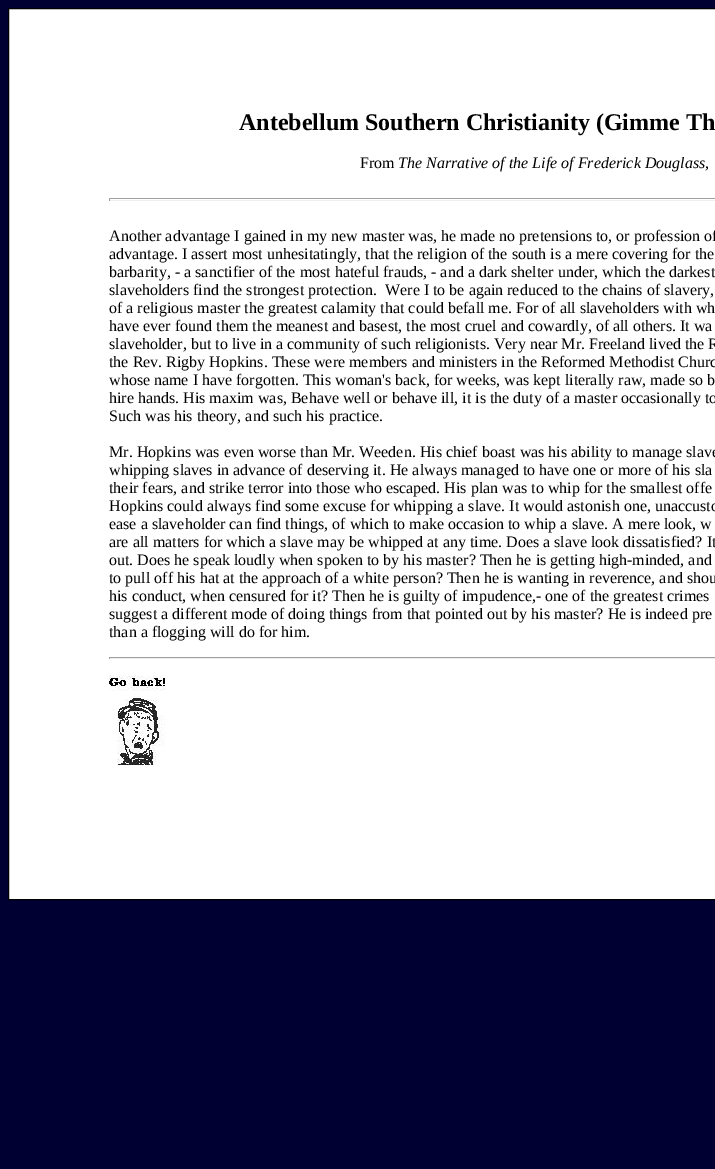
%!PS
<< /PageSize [715 1169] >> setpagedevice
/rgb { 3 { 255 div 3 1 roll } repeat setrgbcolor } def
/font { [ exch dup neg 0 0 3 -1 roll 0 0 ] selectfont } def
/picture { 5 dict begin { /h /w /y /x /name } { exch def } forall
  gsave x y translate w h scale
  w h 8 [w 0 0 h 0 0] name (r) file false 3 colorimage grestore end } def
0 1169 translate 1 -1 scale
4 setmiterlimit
0 0 51 rgb
0 0 715 1169 rectfill
255 255 255 rgb
8.5 8.5 moveto 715.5 8.5 lineto 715.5 899.5 lineto 8.5 899.5 lineto closepath gsave fill grestore
0 0 0 rgb
stroke
[
  [109 198 606 1 159 159 159]
  [109 200 606 1 238 238 238]
  [109 198 1 3 159 159 159]
  [109 657 606 1 159 159 159]
  [109 658 606 1 238 238 238]
  [109 657 1 2 159 159 159]
] { aload pop rgb rectfill } forall
(img/1.rgb) 109 675 56 90 picture
/LiberationSerif-Bold 24 font
0 0 0 rgb
239 130 moveto (Antebellum Southern Christianity \(Gimme Th) show
/LiberationSerif-Regular 16 font
360 168 moveto (From) show
/LiberationSerif-Italic 16 font
398 168 moveto (The Narrative of the Life of Frederick Douglass,) show
/LiberationSerif-Regular 16 font
[
  [(Another advantage I gained in my new master was, he made no pretensions to, or profession of) 109 241]
  [(advantage. I assert most unhesitatingly, that the religion of the south is a mere covering for the) 109 259]
  [(barbarity, - a sanctifier of the most hateful frauds, - and a dark shelter under, which the darkest) 109 277]
  [(slaveholders find the strongest protection.) 109 295]
  [(Were I to be again reduced to the chains of slavery,) 385 295]
  [(of a religious master the greatest calamity that could befall me. For of all slaveholders with wh) 109 313]
  [(have ever found them the meanest and basest, the most cruel and cowardly, of all others. It wa) 109 331]
  [(slaveholder, but to live in a community of such religionists. Very near Mr. Freeland lived the R) 109 349]
  [(the Rev. Rigby Hopkins. These were members and ministers in the Reformed Methodist Churc) 109 367]
  [(whose name I have forgotten. This woman's back, for weeks, was kept literally raw, made so b) 109 385]
  [(hire hands. His maxim was, Behave well or behave ill, it is the duty of a master occasionally to) 109 403]
  [(Such was his theory, and such his practice.) 109 421]
  [(Mr. Hopkins was even worse than Mr. Weeden. His chief boast was his ability to manage slave) 109 457]
  [(whipping slaves in advance of deserving it. He always managed to have one or more of his sla) 109 475]
  [(their fears, and strike terror into those who escaped. His plan was to whip for the smallest offe) 109 493]
  [(Hopkins could always find some excuse for whipping a slave. It would astonish one, unaccusto) 109 511]
  [(ease a slaveholder can find things, of which to make occasion to whip a slave. A mere look, w) 109 529]
  [(are all matters for which a slave may be whipped at any time. Does a slave look dissatisfied? It) 109 547]
  [(out. Does he speak loudly when spoken to by his master? Then he is getting high-minded, and) 109 565]
  [(to pull off his hat at the approach of a white person? Then he is wanting in reverence, and shou) 109 583]
  [(his conduct, when censured for it? Then he is guilty of impudence,- one of the greatest crimes) 109 601]
  [(suggest a different mode of doing things from that pointed out by his master? He is indeed pre) 109 619]
  [(than a flogging will do for him.) 109 637]
] { aload pop moveto show } forall
showpage
